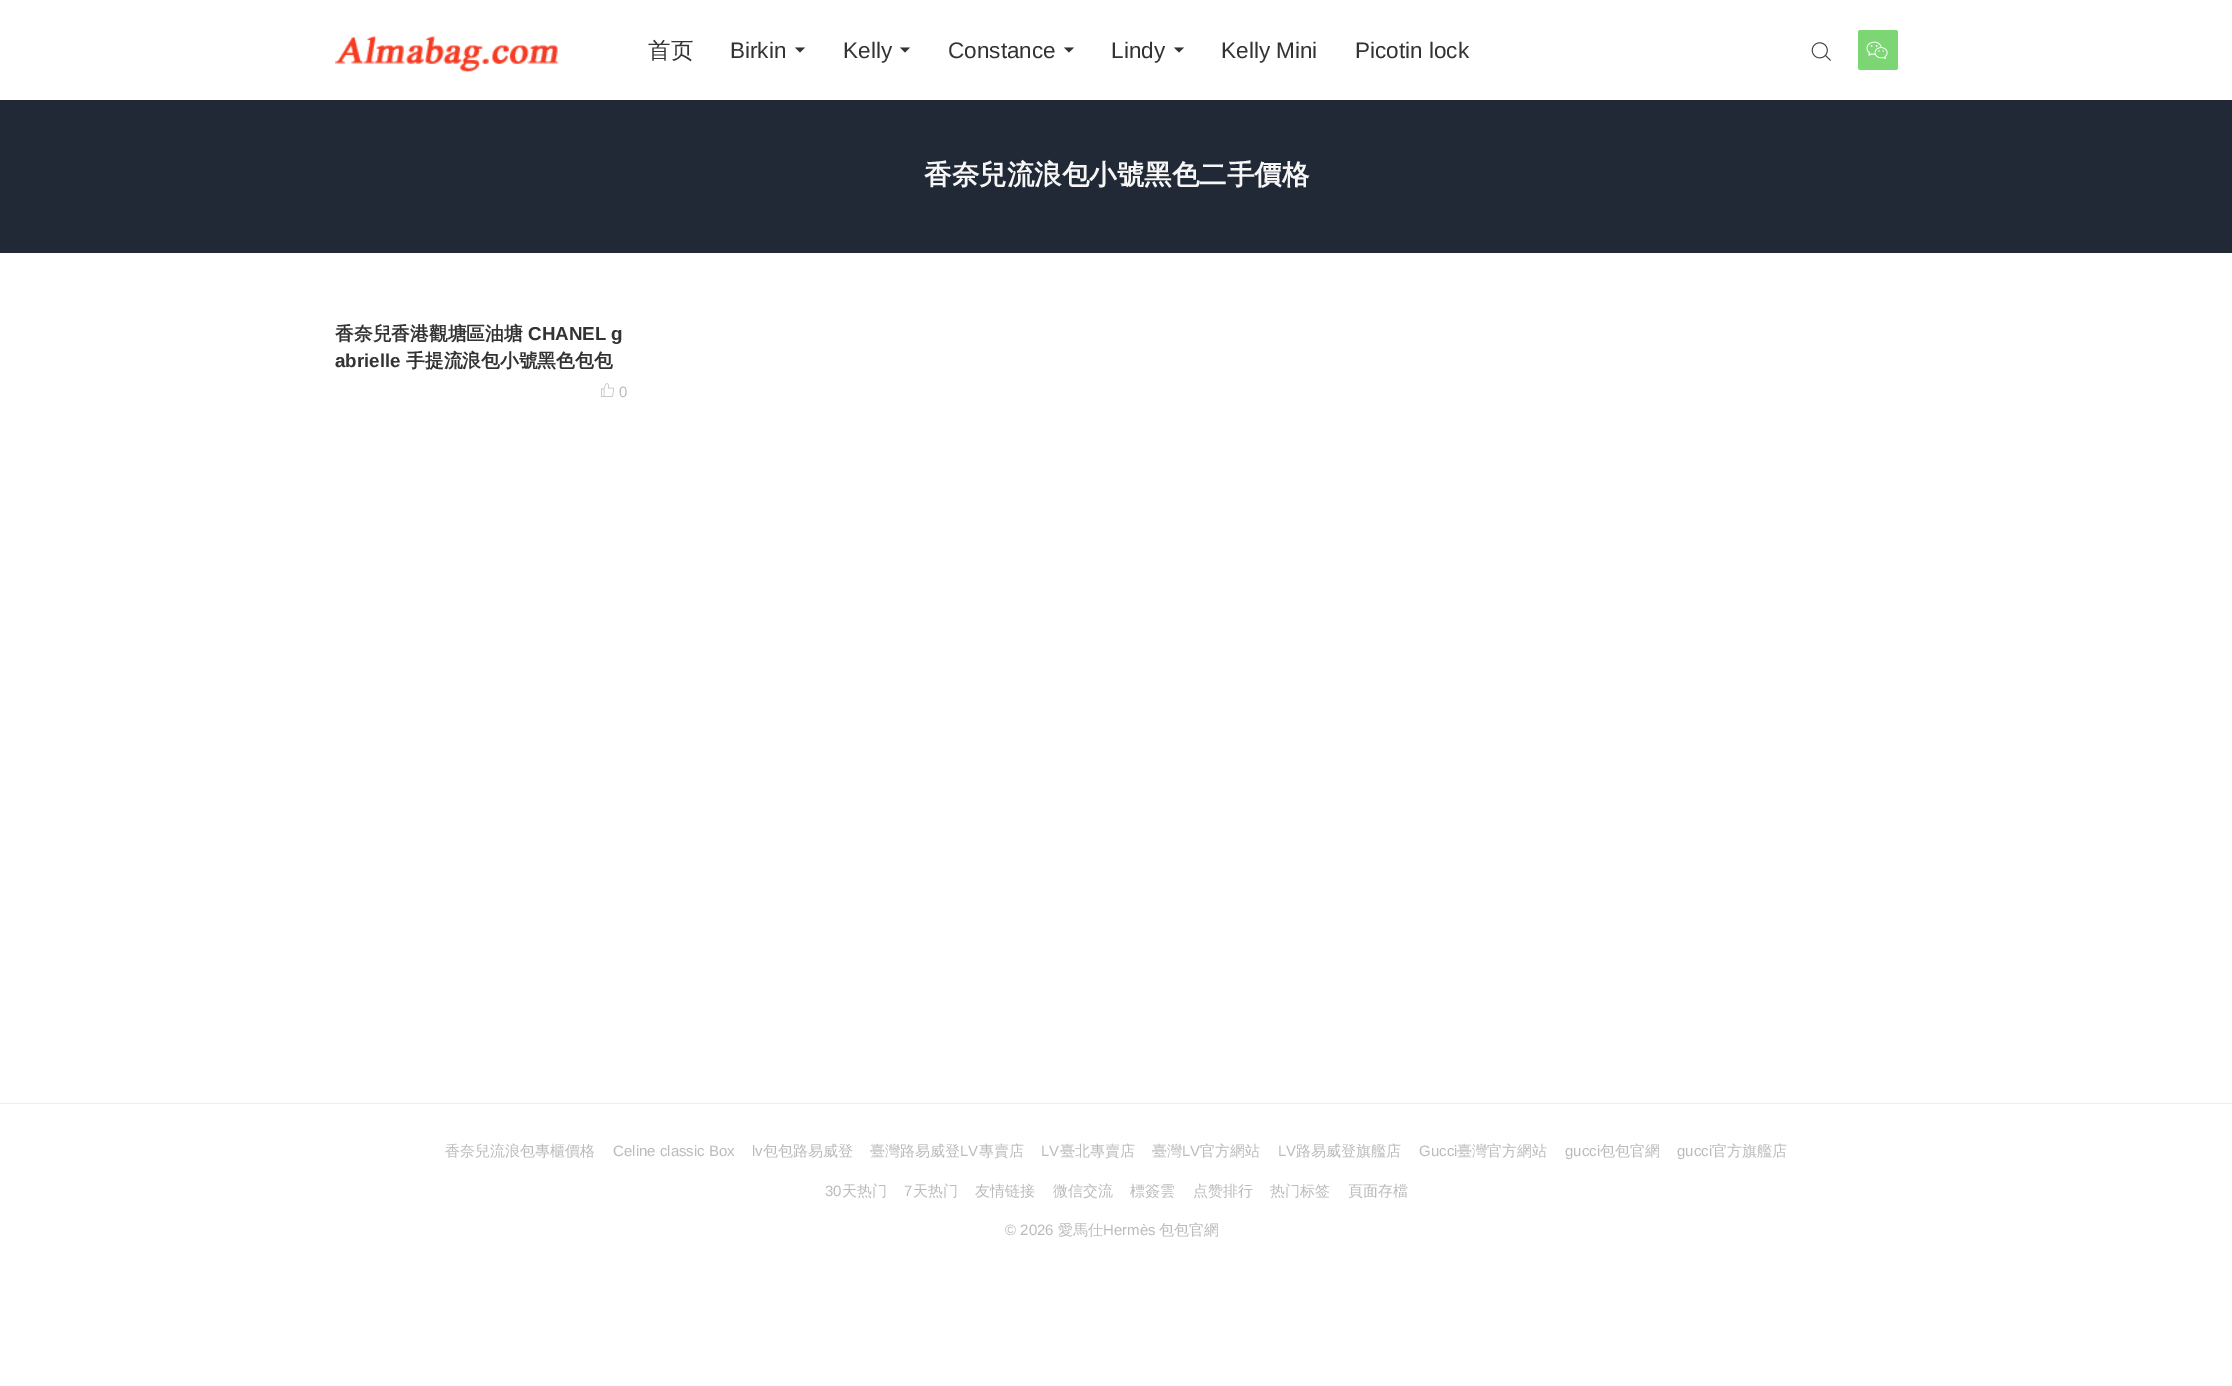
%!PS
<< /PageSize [2232 1386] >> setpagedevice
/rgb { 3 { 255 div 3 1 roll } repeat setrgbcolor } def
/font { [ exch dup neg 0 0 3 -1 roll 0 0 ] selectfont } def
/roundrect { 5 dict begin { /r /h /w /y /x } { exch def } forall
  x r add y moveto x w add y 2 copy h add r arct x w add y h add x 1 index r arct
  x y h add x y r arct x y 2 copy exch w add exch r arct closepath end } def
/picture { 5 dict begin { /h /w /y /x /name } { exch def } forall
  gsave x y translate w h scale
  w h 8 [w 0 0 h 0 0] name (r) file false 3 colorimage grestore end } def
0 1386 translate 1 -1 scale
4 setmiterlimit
255 255 255 rgb
0 0 2232 1386 rectfill
(img/1.rgb) 335 36 224 36 picture
51 51 51 rgb
795 47.5 moveto 805 47.5 lineto 800 52.5 lineto closepath fill
900 47.5 moveto 910 47.5 lineto 905 52.5 lineto closepath fill
1064 47.5 moveto 1074 47.5 lineto 1069 52.5 lineto closepath fill
1174 47.5 moveto 1184 47.5 lineto 1179 52.5 lineto closepath fill
(img/2.rgb) 1811 42 20 19 picture
124 214 115 rgb
1858 30 40 40 2.5 roundrect fill
(img/3.rgb) 1866 41 22 18 picture
32 41 53 rgb
0 100 2232 153 rectfill
(img/4.rgb) 601 383 13 14 picture
238 238 238 rgb
0 1103 2232 1 rectfill
/WenQuanYiZenHei-Medium 22.5 font
51 51 51 rgb
648 58 moveto (首页) show
/LiberationSans-Regular 22.5 font
[
  [(Birkin) 730 58]
  [(Kelly) 843 58]
  [(Constance) 948 58]
  [(Lindy) 1111 58]
  [(Kelly Mini) 1221 58]
  [(Picotin lock) 1355 58]
] { aload pop moveto show } forall
/WenQuanYiZenHei-Bold 27.5 font
246 246 246 rgb
924 184 moveto (香奈兒流浪包小號黑色二手價格) show
/WenQuanYiZenHei-Bold 18.75 font
51 51 51 rgb
335 340 moveto (香奈兒香港觀塘區油塘) show
/LiberationSans-Bold 18.75 font
528 340 moveto (CHANEL g) show
335 367 moveto (abrielle) show
/WenQuanYiZenHei-Bold 18.75 font
406 367 moveto (手提流浪包小號黑色包包) show
/LiberationSans-Regular 15 font
187 187 187 rgb
619 397 moveto (0) show
/WenQuanYiZenHei-Medium 15 font
445 1156 moveto (香奈兒流浪包專櫃價格) show
/LiberationSans-Regular 15 font
613 1156 moveto (Celine classic Box) show
752 1156 moveto (lv) show
/WenQuanYiZenHei-Medium 15 font
763 1156 moveto (包包路易威登) show
870 1156 moveto (臺灣路易威登) show
/LiberationSans-Regular 15 font
960 1156 moveto (LV) show
/WenQuanYiZenHei-Medium 15 font
979 1156 moveto (專賣店) show
/LiberationSans-Regular 15 font
1041 1156 moveto (LV) show
/WenQuanYiZenHei-Medium 15 font
1060 1156 moveto (臺北專賣店) show
1152 1156 moveto (臺灣) show
/LiberationSans-Regular 15 font
1182 1156 moveto (LV) show
/WenQuanYiZenHei-Medium 15 font
1200 1156 moveto (官方網站) show
/LiberationSans-Regular 15 font
1278 1156 moveto (LV) show
/WenQuanYiZenHei-Medium 15 font
1296 1156 moveto (路易威登旗艦店) show
/LiberationSans-Regular 15 font
1419 1156 moveto (Gucci) show
/WenQuanYiZenHei-Medium 15 font
1457 1156 moveto (臺灣官方網站) show
/LiberationSans-Regular 15 font
1565 1156 moveto (gucci) show
/WenQuanYiZenHei-Medium 15 font
1600 1156 moveto (包包官網) show
/LiberationSans-Regular 15 font
1677 1156 moveto (gucci) show
/WenQuanYiZenHei-Medium 15 font
1712 1156 moveto (官方旗艦店) show
/LiberationSans-Regular 15 font
825 1196 moveto (30) show
/WenQuanYiZenHei-Medium 15 font
842 1196 moveto (天热门) show
/LiberationSans-Regular 15 font
904 1196 moveto (7) show
/WenQuanYiZenHei-Medium 15 font
[
  [(天热门) 913 1196]
  [(友情链接) 975 1196]
  [(微信交流) 1053 1196]
  [(標簽雲) 1130 1196]
  [(点赞排行) 1193 1196]
  [(热门标签) 1270 1196]
  [(頁面存檔) 1348 1196]
] { aload pop moveto show } forall
/LiberationSans-Regular 15 font
1005 1235 moveto (© 2026) show
/WenQuanYiZenHei-Medium 15 font
1058 1235 moveto (愛馬仕) show
/LiberationSans-Regular 15 font
1103 1235 moveto (Hermès) show
/WenQuanYiZenHei-Medium 15 font
1159 1235 moveto (包包官網) show
showpage
